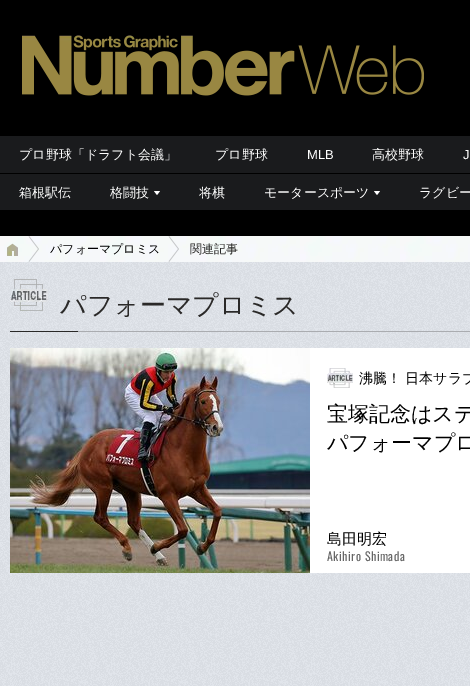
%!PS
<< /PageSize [470 686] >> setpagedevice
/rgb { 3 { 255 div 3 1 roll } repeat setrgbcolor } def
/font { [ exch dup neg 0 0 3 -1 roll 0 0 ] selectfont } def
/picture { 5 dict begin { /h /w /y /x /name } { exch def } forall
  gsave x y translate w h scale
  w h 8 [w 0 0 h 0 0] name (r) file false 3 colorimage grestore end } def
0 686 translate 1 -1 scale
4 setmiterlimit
0 0 0 rgb
0 0 470 686 rectfill
(img/1.rgb) 22 35 402 61 picture
26 27 29 rgb
0 136 470 37 rectfill
0 174 470 36 rectfill
255 255 255 rgb
154 191 moveto 160 191 lineto 157 195 lineto closepath fill
374 191 moveto 380 191 lineto 377 195 lineto closepath fill
(img/2.rgb) 0 236 470 26 picture
(img/3.rgb) 28 236 11 26 picture
(img/4.rgb) 7 243 11 13 picture
(img/5.rgb) 168 236 11 26 picture
(img/6.rgb) 0 262 470 424 picture
(img/7.rgb) 10 279 38 32 picture
[
  [78 331 392 1 170 172 176]
  [10 331 68 1 42 41 40]
  [310 348 160 225 255 255 255]
] { aload pop rgb rectfill } forall
(img/8.rgb) 10 348 300 225 picture
(img/9.rgb) 327 368 26 20 picture
/WenQuanYiZenHei-Medium 13 font
19 159 moveto (プロ野球「ドラフト会議」) show
215 159 moveto (プロ野球) show
/LiberationSans-Regular 13 font
307 159 moveto (MLB) show
/WenQuanYiZenHei-Medium 13 font
372 159 moveto (高校野球) show
/LiberationSans-Regular 13 font
463 159 moveto (J) show
/WenQuanYiZenHei-Medium 13 font
[
  [(箱根駅伝) 19 197]
  [(格闘技) 110 197]
  [(将棋) 199 197]
  [(モータースポーツ) 264 197]
  [(ラグビー) 419 197]
] { aload pop moveto show } forall
/WenQuanYiZenHei-Medium 12 font
0 0 0 rgb
50 253 moveto (パフォーマプロミス) show
42 41 40 rgb
190 253 moveto (関連記事) show
/WenQuanYiZenHei-Medium 26 font
60 314 moveto (パフォーマプロミス) show
/WenQuanYiZenHei-Medium 14 font
0 0 0 rgb
359 383 moveto (沸騰！ 日本サラブ) show
/WenQuanYiZenHei-Medium 21 font
327 421 moveto (宝塚記念はステ) show
327 450 moveto (パフォーマプロ) show
/WenQuanYiZenHei-Medium 15 font
327 544 moveto (島田明宏) show
/Oswald-Regular 12 font
102 102 102 rgb
327 561 moveto 0.5 0 (Akihiro Shimada) ashow
showpage
